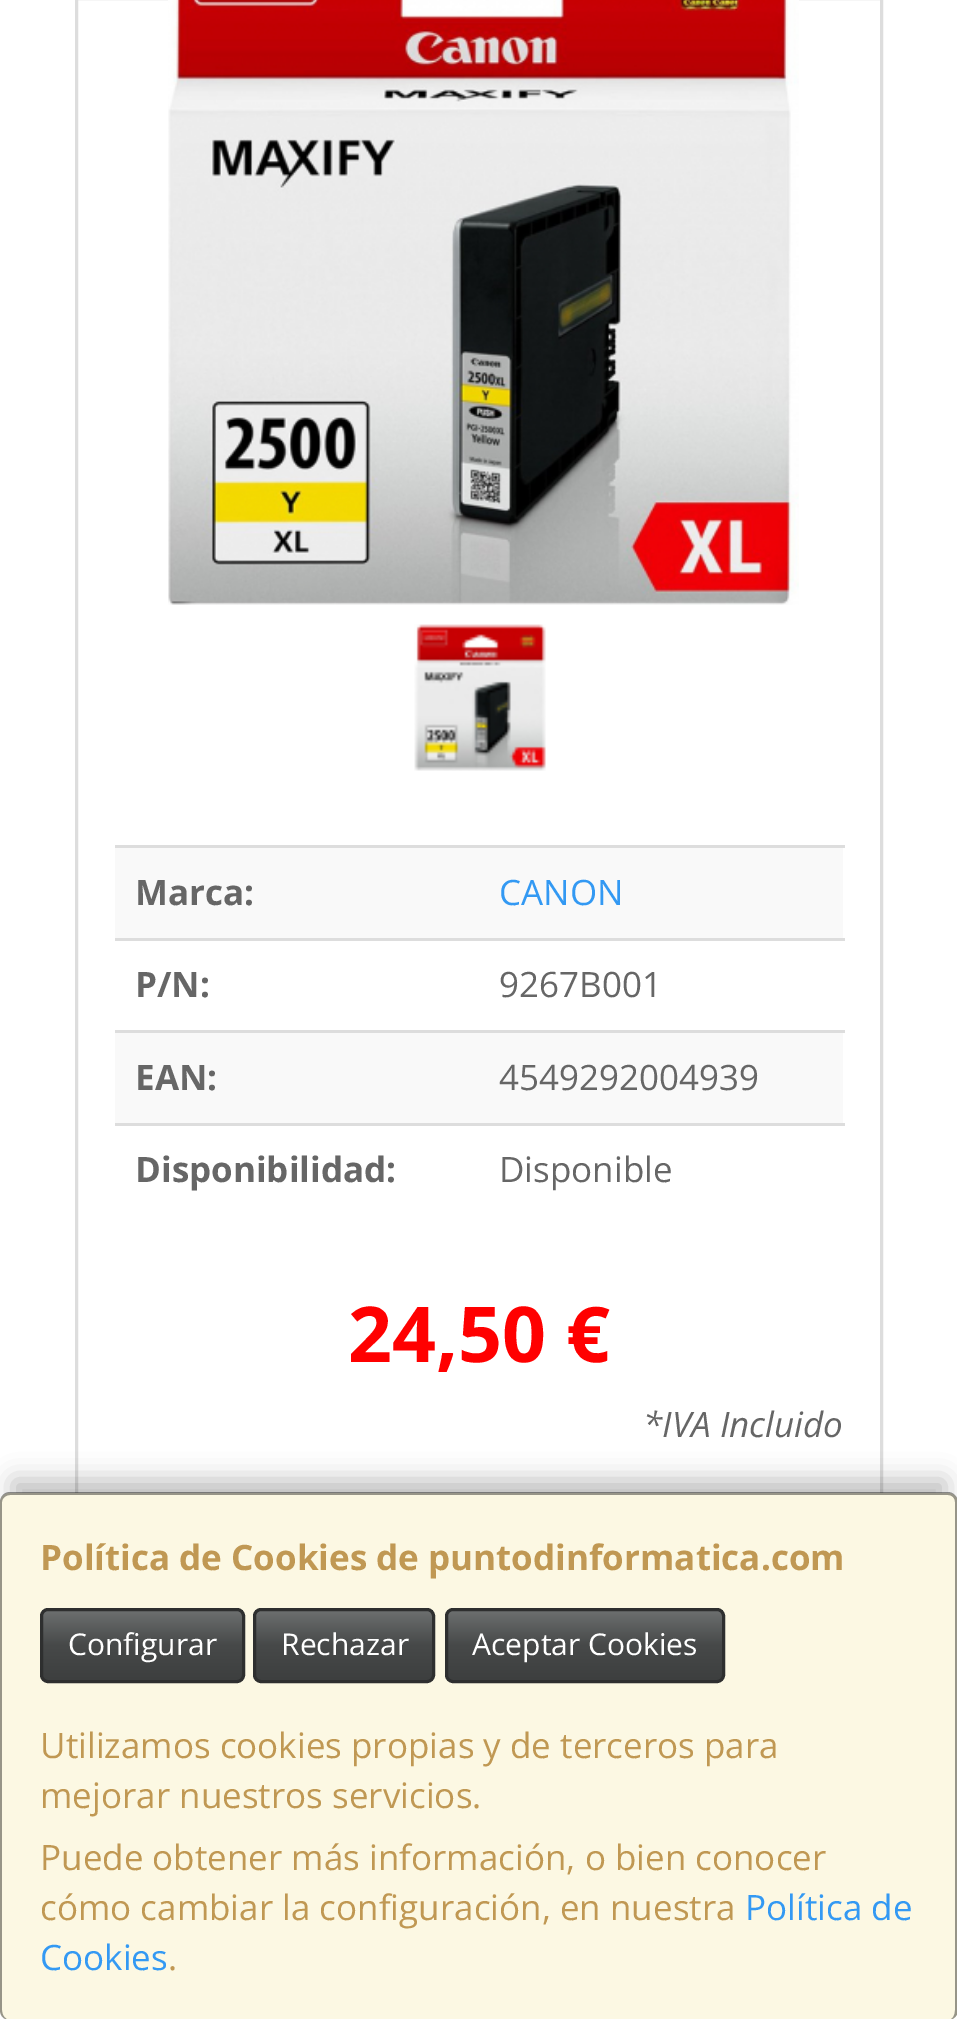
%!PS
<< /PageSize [957 2019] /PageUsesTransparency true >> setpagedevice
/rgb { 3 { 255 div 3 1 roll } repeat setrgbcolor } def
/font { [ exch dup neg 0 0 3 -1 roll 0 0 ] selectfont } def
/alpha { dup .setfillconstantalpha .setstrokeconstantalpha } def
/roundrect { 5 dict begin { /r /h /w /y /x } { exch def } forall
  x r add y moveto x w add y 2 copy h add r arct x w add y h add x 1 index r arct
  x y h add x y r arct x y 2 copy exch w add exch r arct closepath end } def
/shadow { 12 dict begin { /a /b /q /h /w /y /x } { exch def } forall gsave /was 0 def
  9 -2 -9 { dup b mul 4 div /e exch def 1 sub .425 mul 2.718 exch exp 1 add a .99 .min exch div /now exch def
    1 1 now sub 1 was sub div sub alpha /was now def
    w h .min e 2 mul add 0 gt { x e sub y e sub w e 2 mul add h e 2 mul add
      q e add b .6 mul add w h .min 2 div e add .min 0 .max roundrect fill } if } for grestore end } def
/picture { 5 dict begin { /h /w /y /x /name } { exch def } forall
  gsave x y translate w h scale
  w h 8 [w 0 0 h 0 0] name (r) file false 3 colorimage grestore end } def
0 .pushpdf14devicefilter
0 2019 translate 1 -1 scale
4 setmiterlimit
255 255 255 rgb
0 0 957 2019 rectfill
221 221 221 rgb
3 setlinewidth
76.5 -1.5 805 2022 rectstroke
(img/1.rgb) 168 0 631 605 picture
(img/2.rgb) 414 624 132 147 picture
[
  [115 848 728 90 249 249 249]
  [115 845 730 3 221 221 221]
  [115 938 730 3 221 221 221]
  [115 1033 728 90 249 249 249]
  [115 1030 730 3 221 221 221]
  [115 1123 730 3 221 221 221]
] { aload pop rgb rectfill } forall
0 0 0 rgb
13 1480 932 503 0 12.5 0.25 shadow
252 248 227 rgb
0 1493 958 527 10 roundrect fill
0.4 alpha
0 0 0 rgb
10 1492 moveto 948 1492 lineto 953 1492 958 1497 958 1502 curveto 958 2010 lineto 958 2016 953 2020 948 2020 curveto 10 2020 lineto 4 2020 0 2016 0 2010 curveto 0 1502 lineto 0 1497 4 1492 10 1492 curveto closepath 10 1495 moveto 948 1495 lineto 952 1495 955 1498 955 1502 curveto 955 2010 lineto 955 2016 952 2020 948 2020 curveto 10 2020 lineto 6 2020 2 2016 2 2010 curveto 2 1502 lineto 2 1498 6 1495 10 1495 curveto closepath eofill
1 alpha
gsave 43 1610 moveto 243 1610 lineto 243 1680 lineto 43 1680 lineto closepath clip newpath
<< /ShadingType 2 /ColorSpace /DeviceRGB /Coords [143 1610 143 1680] /Extend [true true] /Function << /FunctionType 3 /Domain [0 1] /Functions [<< /FunctionType 2 /Domain [0 1] /C0 [0.427 0.439 0.439] /C1 [0.278 0.286 0.286] /N 1 >> << /FunctionType 2 /Domain [0 1] /C0 [0.278 0.286 0.286] /C1 [0.239 0.247 0.247] /N 1 >>] /Bounds [0.5] /Encode [0 1 0 1] >> >> shfill grestore
46 47 47 rgb
41.5 1609.5 202 72 6.5 roundrect stroke
gsave 255 1610 moveto 433 1610 lineto 433 1680 lineto 255 1680 lineto closepath clip newpath
<< /ShadingType 2 /ColorSpace /DeviceRGB /Coords [344 1610 344 1680] /Extend [true true] /Function << /FunctionType 3 /Domain [0 1] /Functions [<< /FunctionType 2 /Domain [0 1] /C0 [0.427 0.439 0.439] /C1 [0.278 0.286 0.286] /N 1 >> << /FunctionType 2 /Domain [0 1] /C0 [0.278 0.286 0.286] /C1 [0.239 0.247 0.247] /N 1 >>] /Bounds [0.5] /Encode [0 1 0 1] >> >> shfill grestore
254.5 1609.5 179 72 6.5 roundrect stroke
gsave 448 1610 moveto 723 1610 lineto 723 1680 lineto 448 1680 lineto closepath clip newpath
<< /ShadingType 2 /ColorSpace /DeviceRGB /Coords [585 1610 585 1680] /Extend [true true] /Function << /FunctionType 3 /Domain [0 1] /Functions [<< /FunctionType 2 /Domain [0 1] /C0 [0.427 0.439 0.439] /C1 [0.278 0.286 0.286] /N 1 >> << /FunctionType 2 /Domain [0 1] /C0 [0.278 0.286 0.286] /C1 [0.239 0.247 0.247] /N 1 >>] /Bounds [0.5] /Encode [0 1 0 1] >> >> shfill grestore
446.5 1609.5 277 72 6.5 roundrect stroke
/OpenSans-Bold 35 font
102 102 102 rgb
135 905 moveto (Marca:) show
/OpenSans-Regular 35 font
51 153 243 rgb
499 905 moveto (CANON) show
/OpenSans-Bold 35 font
102 102 102 rgb
135 997 moveto (P/N:) show
/OpenSans-Regular 35 font
499 997 moveto (9267B001) show
/OpenSans-Bold 35 font
135 1090 moveto (EAN:) show
/OpenSans-Regular 35 font
499 1090 moveto (4549292004939) show
/OpenSans-Bold 35 font
135 1182 moveto (Disponibilidad:) show
/OpenSans-Regular 35 font
499 1182 moveto (Disponible) show
/OpenSans-Bold 77 font
255 0 0 rgb
348 1362 moveto (24,50 €) show
/OpenSans-Italic 35 font
102 102 102 rgb
643 1437 moveto (*IVA Incluido) show
/OpenSans-Bold 35 font
192 152 83 rgb
40 1570 moveto (Política de Cookies de puntodinformatica.com) show
/OpenSans-Regular 30 font
255 255 255 rgb
[
  [(Configurar) 68 1655]
  [(Rechazar) 281 1655]
  [(Aceptar Cookies) 472 1655]
] { aload pop moveto show } forall
/OpenSans-Regular 35 font
192 152 83 rgb
[
  [(Utilizamos cookies propias y de terceros para) 40 1758]
  [(mejorar nuestros servicios.) 40 1808]
  [(Puede obtener más información, o bien conocer) 40 1870]
  [(cómo cambiar la configuración, en nuestra) 40 1920]
] { aload pop moveto show } forall
51 153 243 rgb
745 1920 moveto (Política de) show
40 1970 moveto (Cookies) show
192 152 83 rgb
168 1970 moveto (.) show
.poppdf14devicefilter showpage
